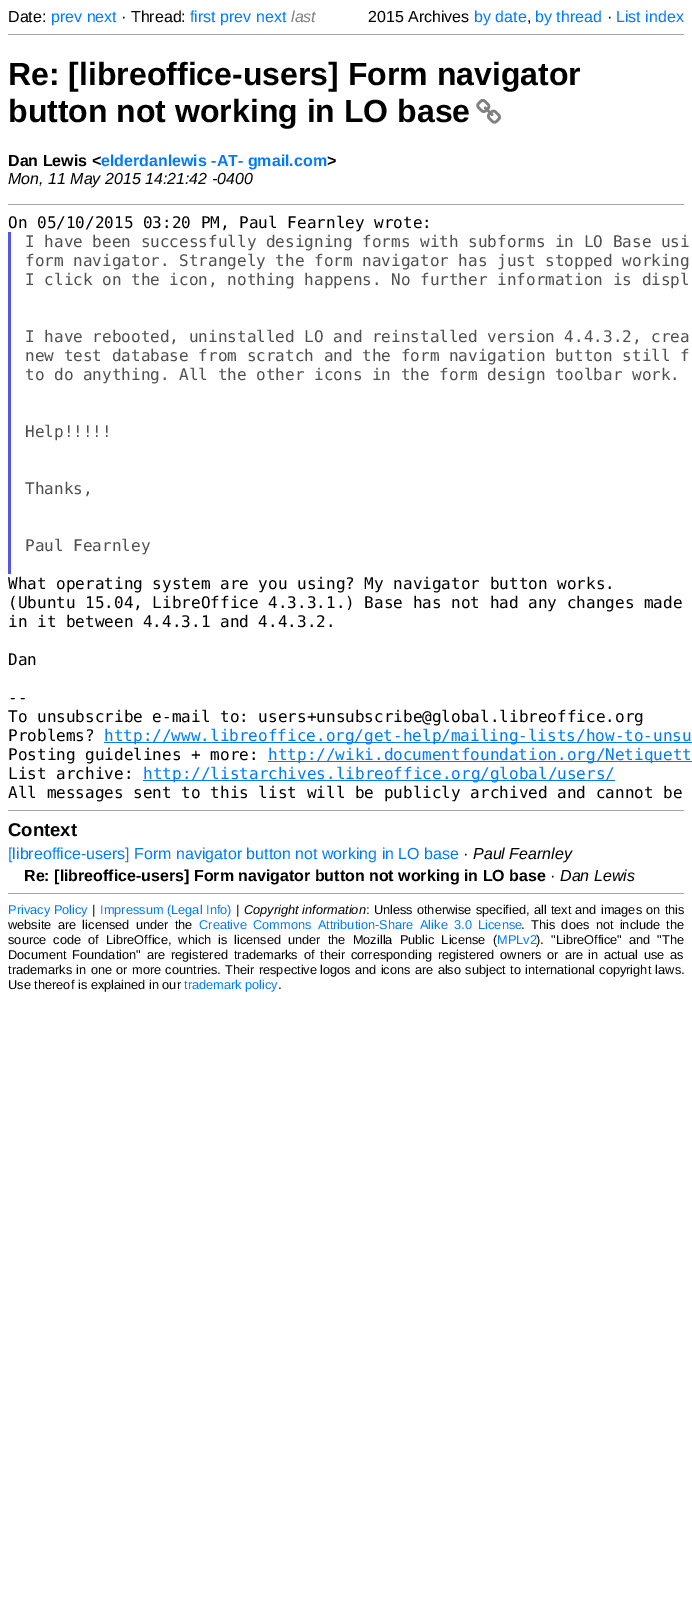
%!PS
<< /PageSize [692 1621] >> setpagedevice
/rgb { 3 { 255 div 3 1 roll } repeat setrgbcolor } def
/font { [ exch dup neg 0 0 3 -1 roll 0 0 ] selectfont } def
/picture { 5 dict begin { /h /w /y /x /name } { exch def } forall
  gsave x y translate w h scale
  w h 8 [w 0 0 h 0 0] name (r) file false 3 colorimage grestore end } def
0 1621 translate 1 -1 scale
4 setmiterlimit
255 255 255 rgb
0 0 692 1621 rectfill
166 166 166 rgb
8 34 676 1 rectfill
(img/1.rgb) 476 98 25 26 picture
[
  [8 204 676 1 166 166 166]
  [8 232 3 342 85 85 238]
  [104 742 588 1 0 123 255]
  [268 761 424 1 0 123 255]
  [143 780 472 1 0 123 255]
  [8 810 676 1 166 166 166]
  [8 893 676 1 166 166 166]
] { aload pop rgb rectfill } forall
/LiberationSans-Regular 16 font
0 0 0 rgb
8 22 moveto (Date:) show
0 123 255 rgb
51 22 moveto (prev next) show
0 0 0 rgb
121 22 moveto (· Thread:) show
0 123 255 rgb
190 22 moveto (first prev next) show
/LiberationSans-Italic 16 font
128 128 128 rgb
291 22 moveto (last) show
/LiberationSans-Regular 16 font
0 0 0 rgb
368 22 moveto (2015 Archives) show
0 123 255 rgb
474 22 moveto (by date) show
535 22 moveto (by thread) show
0 0 0 rgb
607 22 moveto (·) show
0 123 255 rgb
616 22 moveto (List index) show
0 0 0 rgb
527 22 moveto (,) show
/LiberationSans-Bold 32 font
8 85 moveto (Re: [libreoffice-users] Form navigator) show
8 122 moveto (button not working in LO base) show
/LiberationSans-Bold 16 font
8 166 moveto (Dan Lewis <) show
0 123 255 rgb
101 166 moveto (elderdanlewis -AT- gmail.com) show
0 0 0 rgb
327 166 moveto (>) show
/LiberationSans-Italic 16 font
8 184 moveto (Mon, 11 May 2015 14:21:42 -0400) show
/DejaVuSansMono-Regular 16 font
8 228 moveto (On 05/10/2015 03:20 PM, Paul Fearnley wrote:) show
80 80 80 rgb
[
  [(I have been successfully designing forms with subforms in LO Base usi) 25 247]
  [(form navigator. Strangely the form navigator has just stopped working) 25 266]
  [(I click on the icon, nothing happens. No further information is displ) 25 285]
  [(I have rebooted, uninstalled LO and reinstalled version 4.4.3.2, crea) 25 342]
  [(new test database from scratch and the form navigation button still f) 25 361]
  [(to do anything. All the other icons in the form design toolbar work.) 25 380]
  [(Help!!!!!) 25 437]
  [(Thanks,) 25 494]
  [(Paul Fearnley) 25 551]
] { aload pop moveto show } forall
0 0 0 rgb
[
  [(What operating system are you using? My navigator button works.) 8 589]
  [(\(Ubuntu 15.04, LibreOffice 4.3.3.1.\) Base has not had any changes made) 8 608]
  [(in it between 4.4.3.1 and 4.4.3.2.) 8 627]
  [(Dan) 8 665]
  [(--) 8 703]
  [(To unsubscribe e-mail to: users+unsubscribe@global.libreoffice.org) 8 722]
  [(Problems?) 8 741]
] { aload pop moveto show } forall
0 123 255 rgb
104 741 moveto (http://www.libreoffice.org/get-help/mailing-lists/how-to-unsu) show
0 0 0 rgb
8 760 moveto (Posting guidelines + more:) show
0 123 255 rgb
268 760 moveto (http://wiki.documentfoundation.org/Netiquett) show
0 0 0 rgb
8 779 moveto (List archive:) show
0 123 255 rgb
143 779 moveto (http://listarchives.libreoffice.org/global/users/) show
0 0 0 rgb
8 798 moveto (All messages sent to this list will be publicly archived and cannot be) show
/LiberationSans-Bold 18.5 font
8 836 moveto (Context) show
/LiberationSans-Regular 16 font
0 123 255 rgb
8 859 moveto ([libreoffice-users] Form navigator button not working in LO base) show
0 0 0 rgb
463 859 moveto (·) show
/LiberationSans-Italic 16 font
473 859 moveto (Paul Fearnley) show
/LiberationSans-Bold 16 font
24 881 moveto (Re: [libreoffice-users] Form navigator button not working in LO base) show
/LiberationSans-Regular 16 font
550 881 moveto (·) show
/LiberationSans-Italic 16 font
560 881 moveto (Dan Lewis) show
/LiberationSans-Regular 12.8 font
0 123 255 rgb
8 914 moveto (Privacy Policy) show
0 0 0 rgb
92 914 moveto (|) show
0 123 255 rgb
100 914 moveto (Impressum \(Legal Info\)) show
0 0 0 rgb
236 914 moveto (|) show
/LiberationSans-Italic 12.8 font
244 914 moveto (Copyright information) show
/LiberationSans-Regular 12.8 font
366 914 moveto 0.5 0 32 (: Unless otherwise specified, all text and images) widthshow
646 914 moveto 1 0 32 (on this) widthshow
8 929 moveto 2.75 0 32 (website are licensed under the) widthshow
0 123 255 rgb
199 929 moveto 2.75 0 32 (Creative Commons Attribution-Share Alike 3.0 License) widthshow
0 0 0 rgb
521 929 moveto (.) show
531 929 moveto 2.75 0 32 (This does not include the) widthshow
8 944 moveto 3.5 0 32 (source code of LibreOffice, which is) widthshow
234 944 moveto 3.5 0 32 (licensed under the Mozilla Public License \() widthshow
0 123 255 rgb
497 944 moveto (MPLv2) show
0 0 0 rgb
536 944 moveto (\).) show
551 944 moveto 3.5 0 32 ("LibreOffice" and "The) widthshow
8 959 moveto 2.25 0 32 (Document Foundation" are) widthshow
171 959 moveto 2.25 0 32 (registered trademarks of their corresponding registered owners or are) widthshow
588 959 moveto 2.25 0 32 (in actual use as) widthshow
8 974 moveto 0.75 0 32 (trademarks in one or more countries. Their respective) widthshow
320 974 moveto 0.75 0 32 (logos and icons are also subject to international copyright laws.) widthshow
8 989 moveto (Use thereof is explained in our) show
0 123 255 rgb
184 989 moveto (trademark policy) show
0 0 0 rgb
278 989 moveto (.) show
showpage
